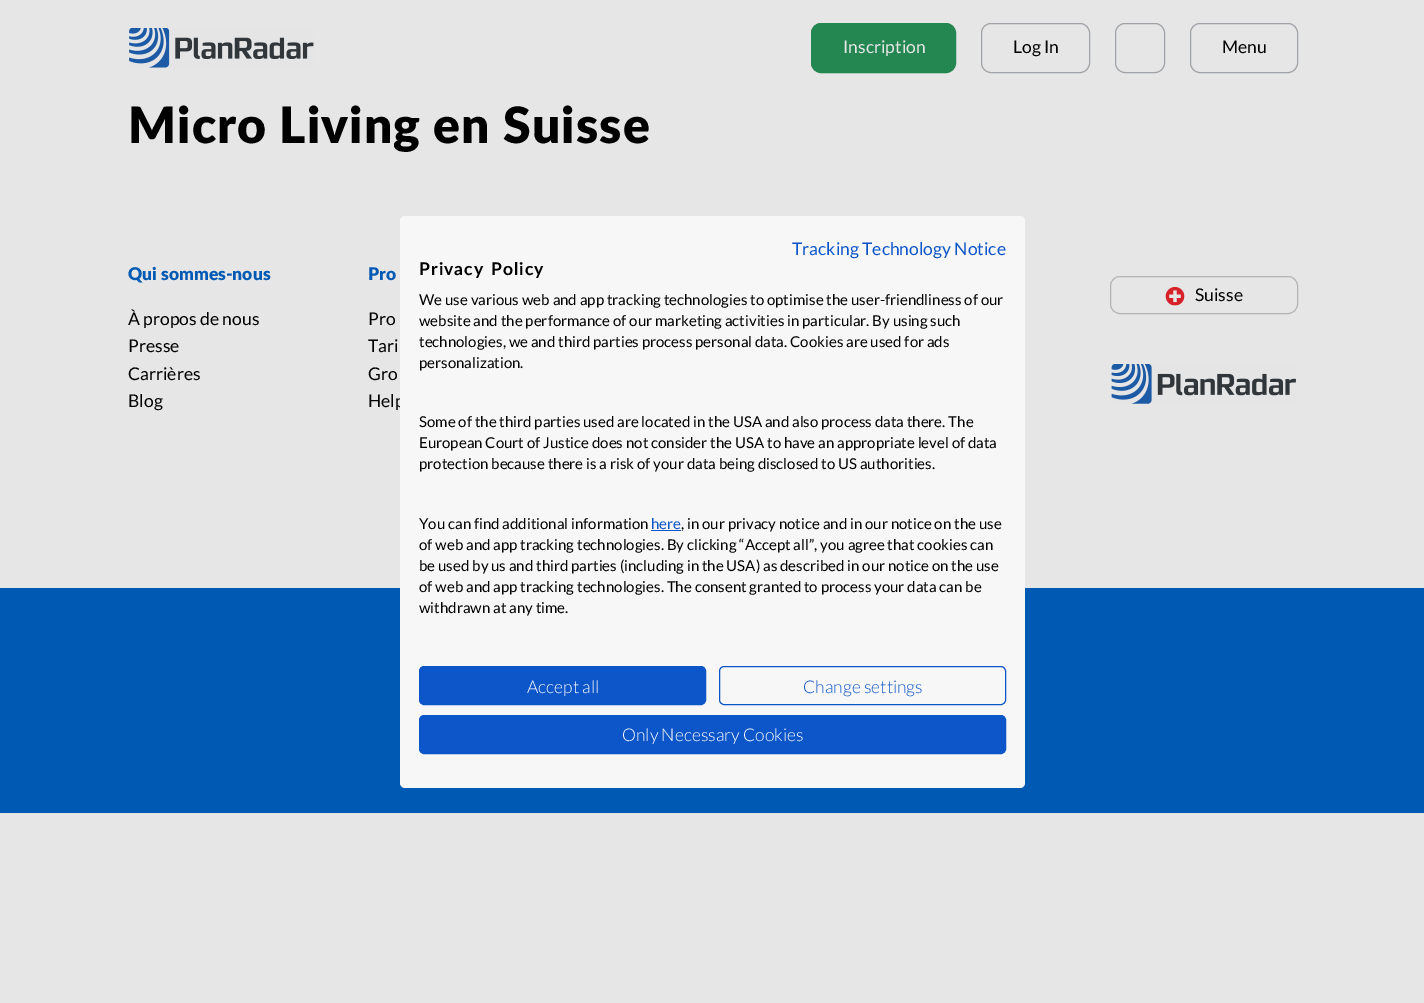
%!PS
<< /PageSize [1424 1003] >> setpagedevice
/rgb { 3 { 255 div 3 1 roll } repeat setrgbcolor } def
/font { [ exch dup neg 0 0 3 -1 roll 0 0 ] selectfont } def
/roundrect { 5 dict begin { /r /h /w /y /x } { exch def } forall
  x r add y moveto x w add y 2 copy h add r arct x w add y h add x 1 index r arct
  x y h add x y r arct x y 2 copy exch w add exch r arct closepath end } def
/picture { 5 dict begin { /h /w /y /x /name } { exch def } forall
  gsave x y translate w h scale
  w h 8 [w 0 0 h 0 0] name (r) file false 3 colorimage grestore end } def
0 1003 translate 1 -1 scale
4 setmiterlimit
230 230 230 rgb
0 0 1424 1003 rectfill
(img/1.rgb) 129 28 185 40 picture
36 135 81 rgb
811.5 23.5 144 49 9.5 roundrect gsave fill grestore
stroke
159 163 167 rgb
981.5 23.5 108 49 9.5 roundrect stroke
1115.5 23.5 49 49 9.5 roundrect stroke
1190.5 23.5 107 49 9.5 roundrect stroke
180 180 180 rgb
1110.5 276.5 187 37 9.5 roundrect stroke
(img/2.rgb) 1165 287 20 19 picture
(img/3.rgb) 1111 364 185 40 picture
0 90 180 rgb
0 588 1424 225 rectfill
/Lato-Regular 17.5 font
230 230 230 rgb
843 53 moveto (Inscription) show
0 0 0 rgb
1013 53 moveto (Log In) show
1222 53 moveto (Menu) show
/Lato-Black 50 font
128 143 moveto -0.5 0 32 1.1 0 (Micro Living en Suisse) awidthshow
/Lato-Black 17.5 font
0 90 180 rgb
128 280 moveto (Qui sommes-nous) show
/Lato-Regular 17.5 font
0 0 0 rgb
[
  [(À propos de nous) 128 325]
  [(Presse) 128 352]
  [(Carrières) 128 380]
  [(Blog) 128 407]
] { aload pop moveto show } forall
/Lato-Black 17.5 font
0 90 180 rgb
368 280 moveto (Pro) show
/Lato-Regular 17.5 font
0 0 0 rgb
[
  [(Pro) 368 325]
  [(Tari) 368 352]
  [(Gro) 368 380]
  [(Help) 368 407]
] { aload pop moveto show } forall
247 247 247 rgb
400 216 625 572 5 roundrect fill
13 86 201 rgb
419.5 715.5 586 38 4.5 roundrect gsave fill grestore
stroke
/Lato-Light 17.5 font
255 255 255 rgb
622 741 moveto (Only Necessary Cookies) show
13 86 201 rgb
719.5 666.5 286 38 4.5 roundrect stroke
803 693 moveto (Change settings) show
419.5 666.5 286 38 4.5 roundrect gsave fill grestore
stroke
255 255 255 rgb
527 693 moveto (Accept all) show
/Lato-Regular 15 font
0 0 0 rgb
[
  [(withdrawn at any time.) 419 613]
  [(of web and app tracking technologies. The consent granted to process your data can be) 419 592]
  [(be used by us and third parties \(including in the USA\) as described in our notice on the use) 419 571]
  [(of web and app tracking technologies. By clicking “Accept all”, you agree that cookies can) 419 550]
  [(, in our privacy notice and in our notice on the use) 681 529]
] { aload pop moveto show } forall
13 86 201 rgb
651 529 moveto (here) show
651 530 30 1 rectfill
0 0 0 rgb
[
  [(You can find additional information) 419 529]
  [(protection because there is a risk of your data being disclosed to US authorities.) 419 469]
  [(European Court of Justice does not consider the USA to have an appropriate level of data) 419 448]
  [(Some of the third parties used are located in the USA and also process data there. The) 419 427]
  [(personalization.) 419 368]
  [(technologies, we and third parties process personal data. Cookies are used for ads) 419 347]
  [(website and the performance of our marketing activities in particular. By using such) 419 326]
  [(We use various web and app tracking technologies to optimise the user-friendliness of our) 419 305]
] { aload pop moveto show } forall
/Lato-Bold 17.5 font
419 275 moveto 1 0 32 1.1 0 (Privacy Policy) awidthshow
/Lato-Regular 17.5 font
13 86 201 rgb
792 255 moveto (Tracking Technology Notice) show
0 0 0 rgb
1195 301 moveto (Suisse) show
showpage
